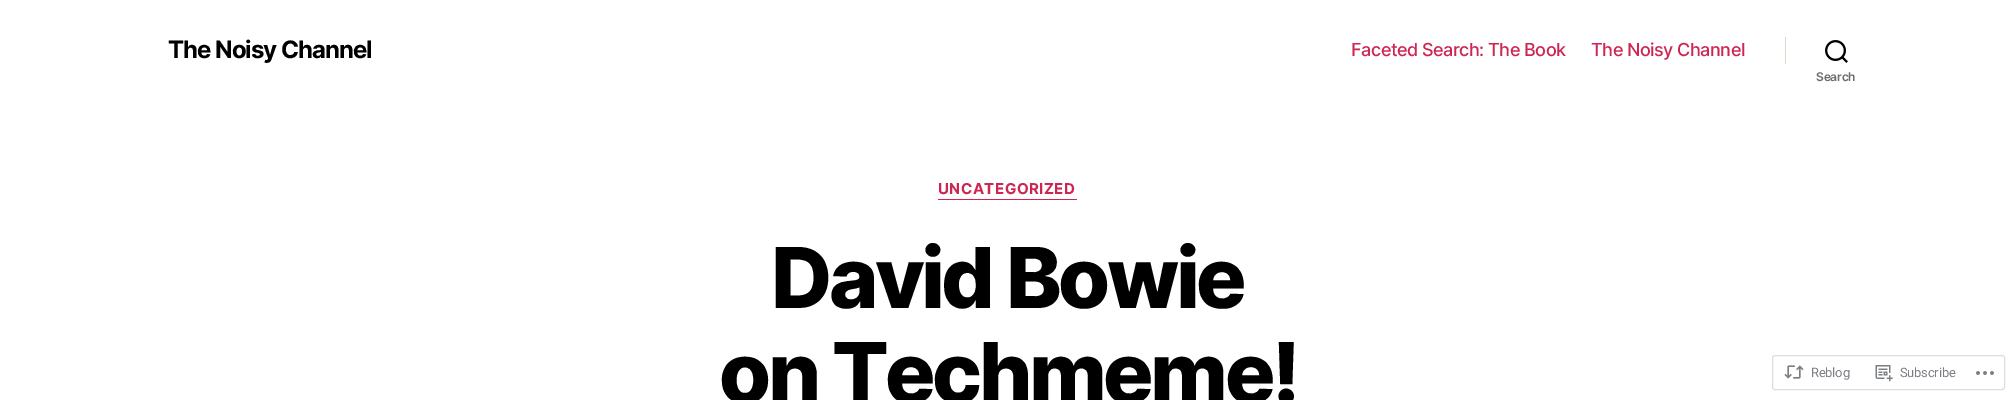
%!PS
<< /PageSize [2015 400] >> setpagedevice
/rgb { 3 { 255 div 3 1 roll } repeat setrgbcolor } def
/font { [ exch dup neg 0 0 3 -1 roll 0 0 ] selectfont } def
/roundrect { 5 dict begin { /r /h /w /y /x } { exch def } forall
  x r add y moveto x w add y 2 copy h add r arct x w add y h add x 1 index r arct
  x y h add x y r arct x y 2 copy exch w add exch r arct closepath end } def
/picture { 5 dict begin { /h /w /y /x /name } { exch def } forall
  gsave x y translate w h scale
  w h 8 [w 0 0 h 0 0] name (r) file false 3 colorimage grestore end } def
0 400 translate 1 -1 scale
4 setmiterlimit
255 255 255 rgb
0 0 2015 400 rectfill
220 215 202 rgb
1785 37 1 27 rectfill
(img/1.rgb) 1825 40 23 23 picture
205 38 83 rgb
938 199 139 1 rectfill
221 221 223 rgb
1772.5 355.5 232 34 2.5 roundrect stroke
(img/2.rgb) 1784 365 20 14 picture
(img/3.rgb) 1875 365 18 17 picture
(img/4.rgb) 1976 371 18 4 picture
/Inter-Bold 24 font
0 0 0 rgb
168 58 moveto -1 0 (The Noisy Channel) ashow
/Inter-Medium 18 font
205 38 83 rgb
1351 56 moveto -0.5 0 (Faceted Search: The Book) ashow
1591 56 moveto -0.5 0 (The Noisy Channel) ashow
/Inter-SemiBold 12 font
109 109 109 rgb
1816 81 moveto -0.25 0 (Search) ashow
/Inter-Bold 15 font
205 38 83 rgb
938 194 moveto 0.5 0 (UNCATEGORIZED) ashow
/Inter-ExtraBold 84 font
0 0 0 rgb
771 308 moveto -3.5 0 (David Bowie) ashow
719 403 moveto -3.5 0 (on Techmeme!) ashow
/Roboto-Regular 13 font
123 127 133 rgb
1811 377 moveto -0.25 0 (Reblog) ashow
1900 377 moveto -0.25 0 (Subscribe) ashow
showpage
